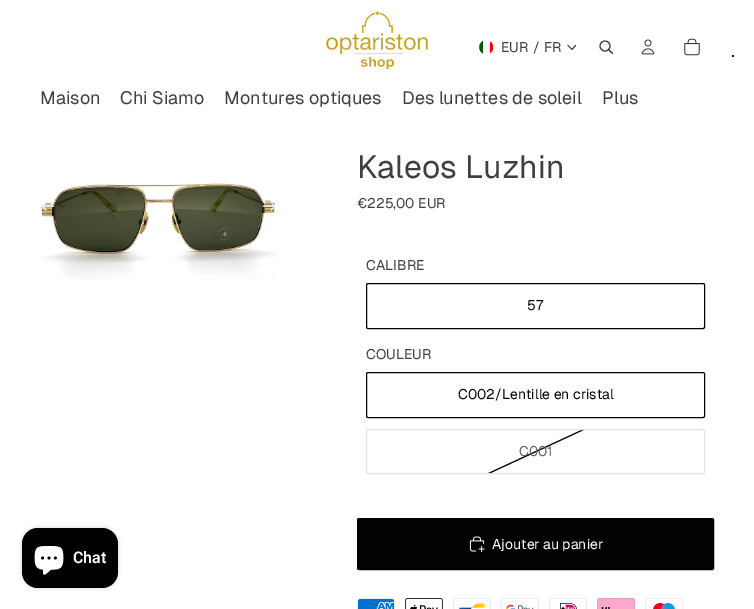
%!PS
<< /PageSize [754 609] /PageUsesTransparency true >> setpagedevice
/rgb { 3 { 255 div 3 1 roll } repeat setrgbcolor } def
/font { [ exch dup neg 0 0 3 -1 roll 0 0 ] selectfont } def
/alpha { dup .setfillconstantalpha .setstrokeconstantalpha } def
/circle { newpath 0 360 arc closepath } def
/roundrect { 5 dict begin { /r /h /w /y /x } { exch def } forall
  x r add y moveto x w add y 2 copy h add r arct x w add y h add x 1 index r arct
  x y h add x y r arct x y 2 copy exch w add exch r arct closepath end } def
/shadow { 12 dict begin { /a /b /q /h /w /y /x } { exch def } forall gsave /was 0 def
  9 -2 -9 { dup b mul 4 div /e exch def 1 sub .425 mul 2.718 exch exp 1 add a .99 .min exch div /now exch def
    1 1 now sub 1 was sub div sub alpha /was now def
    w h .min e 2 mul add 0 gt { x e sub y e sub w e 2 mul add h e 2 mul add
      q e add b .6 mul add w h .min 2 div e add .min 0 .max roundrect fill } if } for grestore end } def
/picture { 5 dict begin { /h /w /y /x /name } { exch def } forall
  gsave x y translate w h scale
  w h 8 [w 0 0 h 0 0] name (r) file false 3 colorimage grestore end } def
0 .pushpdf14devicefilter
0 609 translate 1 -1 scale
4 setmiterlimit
255 255 255 rgb
0 0 754 609 rectfill
(img/1.rgb) 326 11 102 59 picture
0 87 0 rgb
483 41 moveto 483 53.5 lineto 478 51 478 43.5 483 41 curveto closepath fill
gsave
479 40 14 14 rectclip
252 0 0 rgb
490 53 moveto 490 41.5 lineto 494.5 44 494.5 50.5 490 53 curveto closepath fill
grestore
63 63 63 rgb
1 setlinecap
1 setlinejoin
575.5 45.5 moveto 572 49.5 lineto 568 45.5 lineto stroke
1.1 setlinewidth
0 setlinecap
0 setlinejoin
605 46 5 circle stroke
1 setlinecap
1 setlinejoin
609 50 moveto 612.5 53.5 lineto stroke
(img/2.rgb) 641 39 14 16 picture
(img/3.rgb) 684 38 16 18 picture
0 0 0 rgb
733 56 1 circle fill
(img/4.rgb) 41 183 238 97 picture
255 255 255 rgb
1 setlinewidth
54 206 moveto 42 206 lineto 42 206 moveto 46 202 lineto 42 206 moveto 46 210 lineto stroke
263 206 moveto 275 206 lineto 275 206 moveto 271 202 lineto 275 206 moveto 271 210 lineto stroke
3 3 2 rgb
0 setlinecap
0 setlinejoin
366.5 283.5 338 45 1.5 roundrect stroke
366.5 372.5 338 45 1.5 roundrect stroke
gsave
367 430 337 43 rectclip
227 227 227 rgb
704 374 moveto 367 529.5 lineto stroke
0 0 0 rgb
704 374 moveto 367 529.5 lineto stroke
grestore
227 227 227 rgb
366.5 429.5 338 44 1.5 roundrect stroke
3 3 2 rgb
357.5 518.5 356 51 1.5 roundrect gsave fill grestore
stroke
(img/5.rgb) 469 536 16 17 picture
(img/6.rgb) 357 598 38 11 picture
(img/7.rgb) 405 598 38 11 picture
(img/8.rgb) 453 598 38 11 picture
(img/9.rgb) 501 598 38 11 picture
(img/10.rgb) 549 598 38 11 picture
(img/11.rgb) 597 598 38 11 picture
(img/12.rgb) 645 598 38 11 picture
0 0 0 rgb
22 528 96 60 16 2.5 0.15 shadow
22 528 96 60 16 roundrect fill
(img/13.rgb) 34 546 30 29 picture
/Geist-Regular 14 font
63 63 63 rgb
[
  [(EUR) 501 52]
  [(/) 533 52]
  [(FR) 544 52]
] { aload pop moveto show } forall
/Geist-Regular 18 font
[
  [(Maison) 40 104]
  [(Chi Siamo) 120 104]
  [(Montures optiques) 224 104]
  [(Des lunettes de soleil) 402 104]
  [(Plus) 602 104]
] { aload pop moveto show } forall
/Geist-Regular 32 font
357 178 moveto (Kaleos Luzhin) show
/Geist-Regular 14 font
357 208 moveto (€225,00 EUR) show
366 270 moveto (CALIBRE) show
3 3 2 rgb
527 310 moveto (57) show
63 63 63 rgb
366 359 moveto (COULEUR) show
3 3 2 rgb
458 399 moveto (C002/Lentille en cristal) show
96 96 96 rgb
519 456 moveto (C001) show
255 255 255 rgb
492 549 moveto (Ajouter au panier) show
/Roboto-SemiBold 16 font
73 563 moveto (Chat) show
.poppdf14devicefilter showpage
